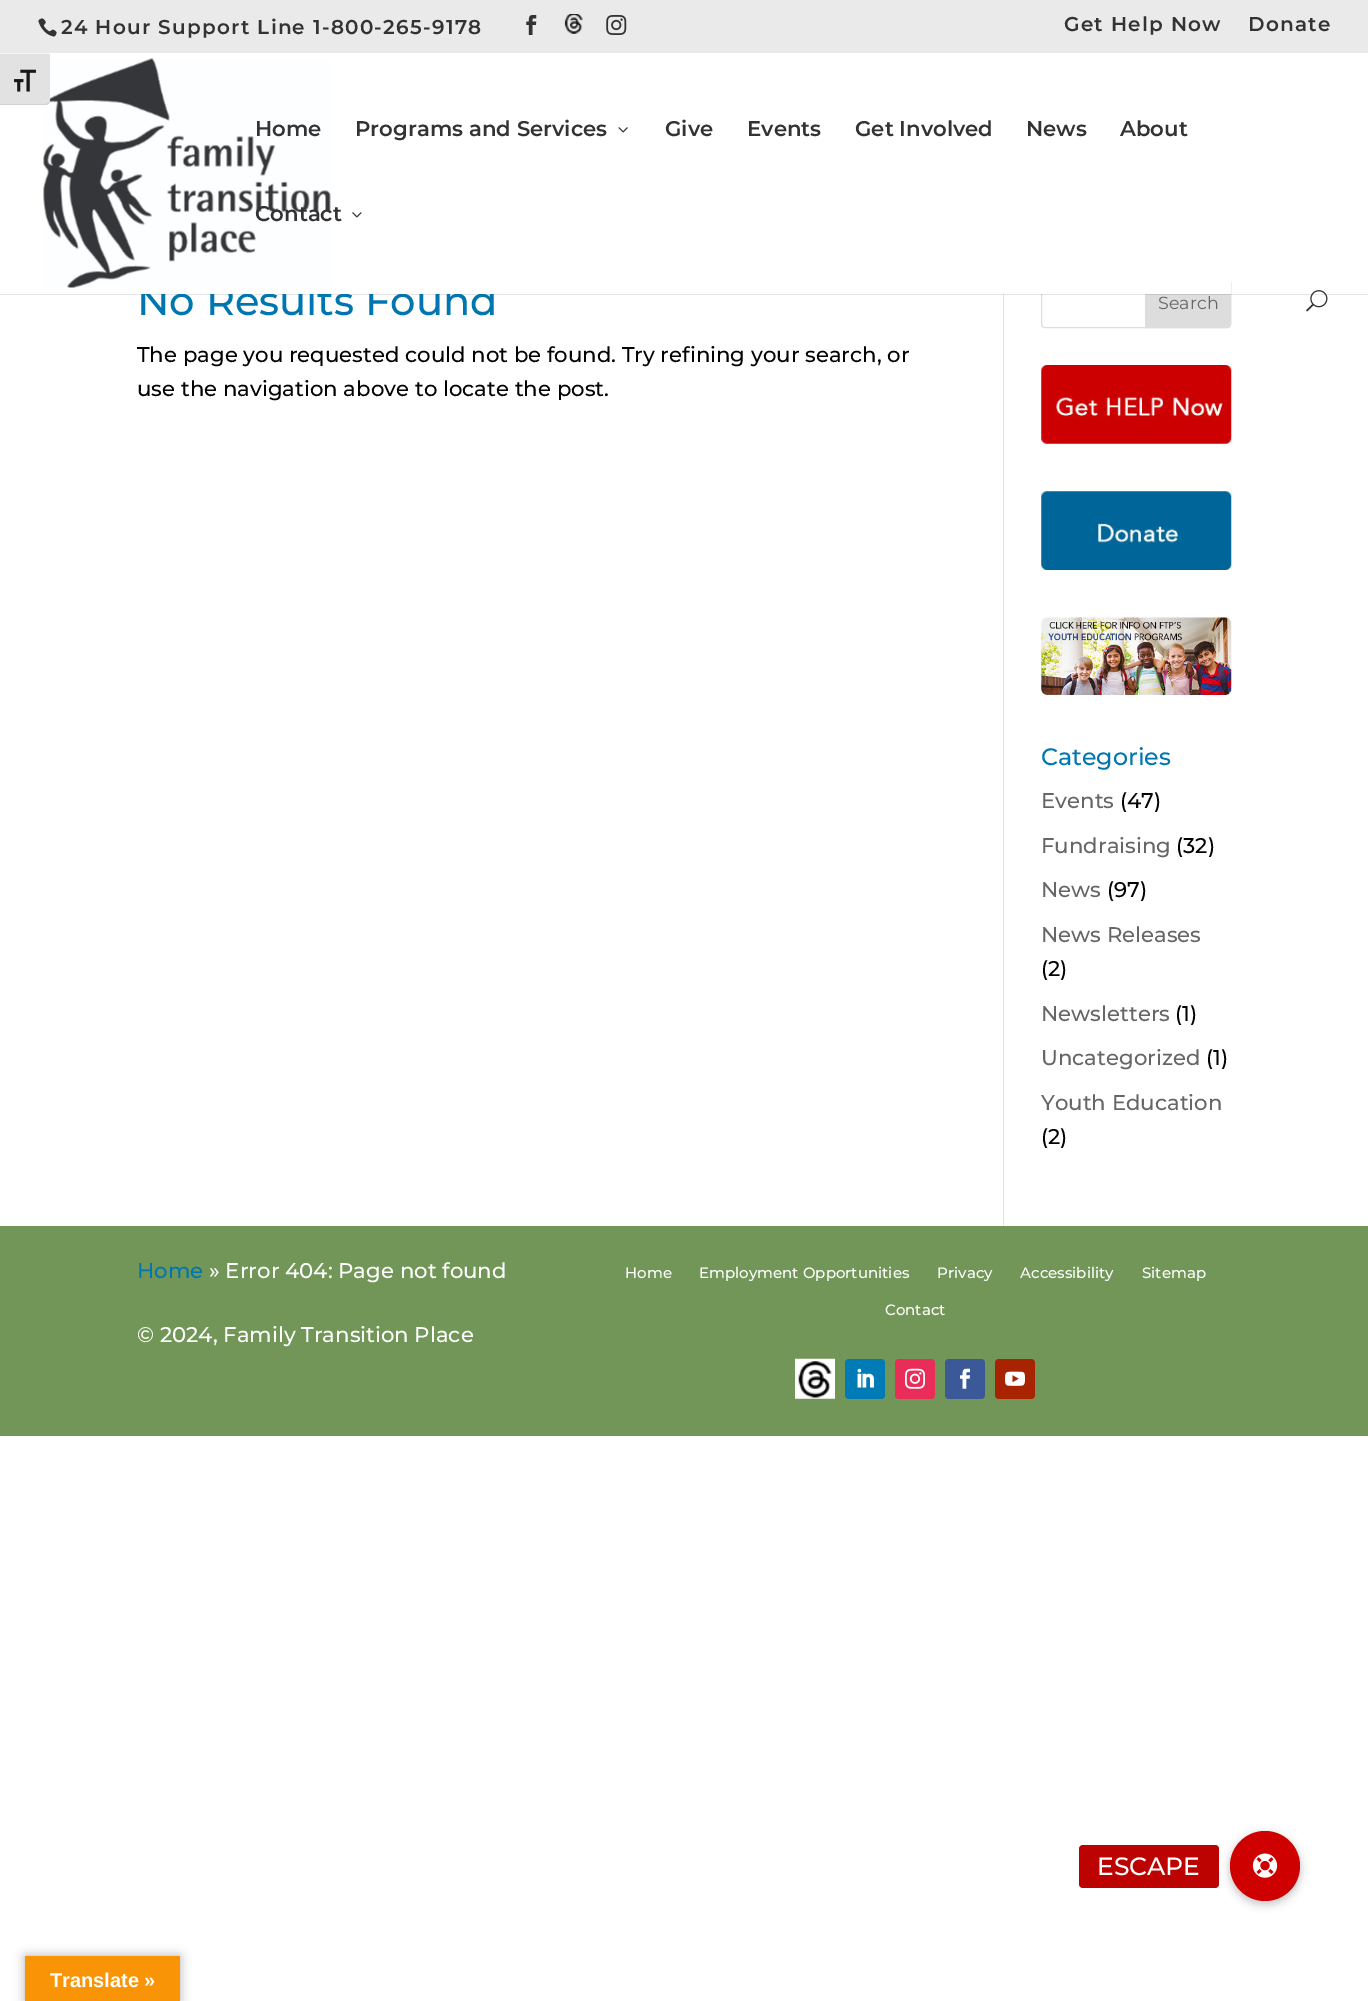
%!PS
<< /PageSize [1368 2001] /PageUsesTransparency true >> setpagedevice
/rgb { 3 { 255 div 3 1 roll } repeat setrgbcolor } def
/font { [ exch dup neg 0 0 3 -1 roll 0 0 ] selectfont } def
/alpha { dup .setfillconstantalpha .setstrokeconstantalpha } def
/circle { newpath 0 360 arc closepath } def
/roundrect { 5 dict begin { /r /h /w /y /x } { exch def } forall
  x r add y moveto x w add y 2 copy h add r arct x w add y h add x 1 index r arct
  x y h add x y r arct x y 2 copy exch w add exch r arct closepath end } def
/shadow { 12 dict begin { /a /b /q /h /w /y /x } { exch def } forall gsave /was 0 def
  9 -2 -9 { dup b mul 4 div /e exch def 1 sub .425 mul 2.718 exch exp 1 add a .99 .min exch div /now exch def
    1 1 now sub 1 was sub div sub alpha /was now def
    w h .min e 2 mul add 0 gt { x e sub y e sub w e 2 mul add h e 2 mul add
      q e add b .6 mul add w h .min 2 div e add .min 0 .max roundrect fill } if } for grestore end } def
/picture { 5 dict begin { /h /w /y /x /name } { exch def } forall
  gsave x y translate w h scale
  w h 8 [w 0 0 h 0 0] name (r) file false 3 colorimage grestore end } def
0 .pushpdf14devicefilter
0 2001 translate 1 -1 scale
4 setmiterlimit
255 255 255 rgb
0 0 1368 2001 rectfill
234 234 234 rgb
0 0 1368 53 rectfill
(img/1.rgb) 38 18 19 19 picture
(img/2.rgb) 526 15 11 20 picture
(img/3.rgb) 564 14 19 20 picture
(img/4.rgb) 606 15 21 20 picture
221 221 221 rgb
1041.5 278.5 189 49 3.5 roundrect stroke
1145.5 278.5 moveto 1227 278.5 lineto 1229 278.5 1230.5 280 1230.5 282 curveto 1230.5 324 lineto 1230.5 326 1229 327.5 1227 327.5 curveto 1145.5 327.5 lineto closepath gsave fill grestore
stroke
226 226 226 rgb
1003 294 1 932 rectfill
0.1 alpha
0 0 0 rgb
0 294 moveto 0 295 lineto 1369 295 lineto 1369 54 lineto 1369 294 lineto closepath fill
1 alpha
(img/6.rgb) 618 127 10 6 picture
(img/7.rgb) 352 212 10 6 picture
(img/8.rgb) 1306 290 22 22 picture
(img/10.rgb) 1041 365 191 79 picture
(img/11.rgb) 1041 491 191 79 picture
(img/12.rgb) 1041 617 191 78 picture
113 150 87 rgb
0 1226 1368 210 rectfill
(img/13.rgb) 795 1358 40 41 picture
0 123 182 rgb
845 1359 40 40 4 roundrect fill
(img/14.rgb) 857 1368 17 20 picture
234 44 89 rgb
895 1359 40 40 4 roundrect fill
(img/15.rgb) 905 1368 20 21 picture
59 89 152 rgb
945 1359 40 40 4 roundrect fill
(img/16.rgb) 960 1368 10 21 picture
168 36 0 rgb
995 1359 40 40 4 roundrect fill
(img/17.rgb) 1005 1371 20 15 picture
0 0 0 rgb
1229 1833 72 72 36 4 0.2 shadow
206 0 0 rgb
1265 1866 35 circle fill
189 2 2 rgb
1079 1845 140 43 4 roundrect fill
(img/18.rgb) 1252 1853 26 25 picture
0 0 0 rgb
25 1956 155 45 0 5.5 0.3 shadow
248 148 6 rgb
25 1956 155 45 rectfill
/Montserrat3-Thin 20 font
51 51 51 rgb
61 34 moveto 1.25 0 (24 Hour Support Line 1-800-265-9178) ashow
1064 31 moveto 1.25 0 (Get Help Now) ashow
1248 31 moveto 1.25 0 (Donate) ashow
/Montserrat3-Thin 21.25 font
[
  [(Programs and Services) 355 136]
  [(Give) 665 136]
  [(Events) 747 136]
  [(Get Involved) 855 136]
  [(News) 1026 136]
  [(About) 1120 136]
] { aload pop moveto show } forall
/Montserrat-Thin 40 font
0 118 176 rgb
137 315 moveto (No Results Found) show
255 255 255 rgb
141 278 1090 16 rectfill
(img/5.rgb) 43 58 288 230 picture
226 226 226 rgb
0 53 moveto 50 53 lineto 50 100 lineto 50 103 48 105 45 105 curveto 0 105 lineto closepath fill
(img/9.rgb) 14 69 22 23 picture
210 210 210 rgb
0 104 moveto 0 105 lineto 45 105 lineto 48 105 50 103 50 100 curveto 50 102 48 104 45 104 curveto closepath fill
245 245 245 rgb
0 53 50 1 rectfill
/Montserrat3-Thin 21.25 font
51 51 51 rgb
255 221 moveto (Contact) show
255 136 moveto (Home) show
/Montserrat-Thin 21.25 font
2 2 2 rgb
137 362 moveto (The page you requested could not be found. Try refining your search, or) show
137 396 moveto (use the navigation above to locate the post.) show
/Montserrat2-Thin 17.5 font
102 102 102 rgb
1158 309 moveto (Search) show
/Montserrat-Thin 23.75 font
0 118 176 rgb
1041 765 moveto (Categories) show
/Montserrat-Thin 21.25 font
102 102 102 rgb
1041 808 moveto (Events) show
2 2 2 rgb
1120 808 moveto (\(47\)) show
102 102 102 rgb
1041 853 moveto (Fundraising) show
2 2 2 rgb
1176 853 moveto (\(32\)) show
102 102 102 rgb
1041 897 moveto (News) show
2 2 2 rgb
1107 897 moveto (\(97\)) show
102 102 102 rgb
1041 942 moveto (News Releases) show
2 2 2 rgb
1041 976 moveto (\(2\)) show
102 102 102 rgb
1041 1021 moveto (Newsletters) show
2 2 2 rgb
1175 1021 moveto (\(1\)) show
102 102 102 rgb
1041 1065 moveto (Uncategorized) show
2 2 2 rgb
1206 1065 moveto (\(1\)) show
102 102 102 rgb
1041 1110 moveto (Youth Education) show
2 2 2 rgb
1041 1144 moveto (\(2\)) show
0 118 176 rgb
137 1278 moveto (Home) show
255 255 255 rgb
209 1278 moveto (» Error 404: Page not found) show
137 1342 moveto (© 2024, Family Transition Place) show
/Montserrat-Thin 15 font
[
  [(Home) 625 1278]
  [(Employment Opportunities) 699 1278]
  [(Privacy) 937 1278]
  [(Accessibility) 1020 1278]
  [(Sitemap) 1142 1278]
  [(Contact) 885 1315]
] { aload pop moveto show } forall
/Montserrat-Thin 25 font
1097 1875 moveto (ESCAPE) show
/LiberationSans-Bold 20 font
50 1987 moveto (Translate ») show
.poppdf14devicefilter showpage
